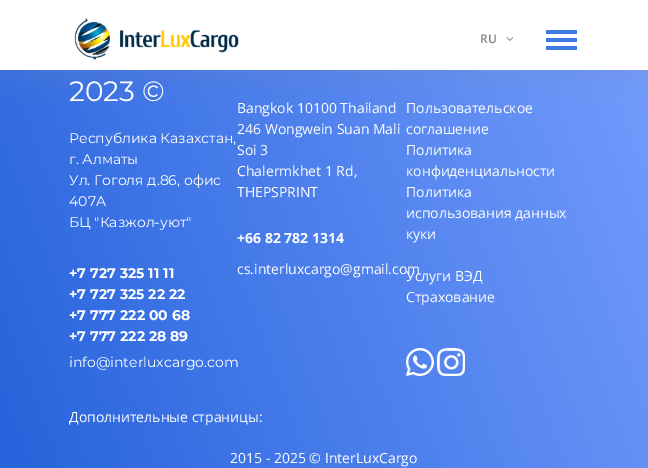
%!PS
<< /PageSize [648 468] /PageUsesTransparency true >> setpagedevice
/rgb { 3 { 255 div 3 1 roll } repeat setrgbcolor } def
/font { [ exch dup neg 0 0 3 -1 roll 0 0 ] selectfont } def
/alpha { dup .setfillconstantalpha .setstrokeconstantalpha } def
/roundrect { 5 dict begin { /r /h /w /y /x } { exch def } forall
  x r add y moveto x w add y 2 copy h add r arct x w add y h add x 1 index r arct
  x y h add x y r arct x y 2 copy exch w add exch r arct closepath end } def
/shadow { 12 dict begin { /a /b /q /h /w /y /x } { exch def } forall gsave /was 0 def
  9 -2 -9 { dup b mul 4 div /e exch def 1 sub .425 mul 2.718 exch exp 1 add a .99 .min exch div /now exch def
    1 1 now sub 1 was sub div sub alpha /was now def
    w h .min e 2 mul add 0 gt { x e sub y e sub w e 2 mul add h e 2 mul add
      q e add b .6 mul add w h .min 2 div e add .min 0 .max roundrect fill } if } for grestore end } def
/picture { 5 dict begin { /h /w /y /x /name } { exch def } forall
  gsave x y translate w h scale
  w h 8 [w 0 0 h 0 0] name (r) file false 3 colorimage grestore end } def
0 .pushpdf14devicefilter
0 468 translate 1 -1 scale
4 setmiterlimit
255 255 255 rgb
0 0 648 468 rectfill
gsave 0 70 moveto 648 70 lineto 648 468 lineto 0 468 lineto closepath clip newpath
<< /ShadingType 2 /ColorSpace /DeviceRGB /Coords [-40 360 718 78] /Extend [true true] /Function << /FunctionType 3 /Domain [0 1] /Functions [<< /FunctionType 2 /Domain [0 1] /C0 [0.157 0.392 0.863] /C1 [0.157 0.392 0.863] /N 1 >> << /FunctionType 2 /Domain [0 1] /C0 [0.157 0.392 0.863] /C1 [0.471 0.627 1] /N 1 >>] /Bounds [0.02] /Encode [0 1 0 1] >> >> shfill grestore
127 137 161 rgb
0 0 648 70 0 15 0.3 shadow
255 255 255 rgb
0 0 648 70 rectfill
(img/1.rgb) 74 18 165 42 picture
(img/2.rgb) 506 37 8 4 picture
[
  [546 38 31 4 62 123 224]
  [546 30 31 4 62 123 224]
  [546 46 31 4 62 123 224]
] { aload pop rgb rectfill } forall
(img/3.rgb) 406 348 28 28 picture
(img/4.rgb) 437 348 28 28 picture
/OpenSans-SemiBold 12 font
128 128 128 rgb
480 43 moveto (RU) show
/Montserrat-Regular 28 font
255 255 255 rgb
69 101 moveto (2023 ©) show
/Montserrat-Regular 14 font
[
  [(Республика Казахстан,) 69 143]
  [(г. Алматы) 69 164]
  [(Ул. Гоголя д.86, офис) 69 185]
  [(407A) 69 206]
  [(БЦ "Казжол-уют") 69 227]
] { aload pop moveto show } forall
/Montserrat-Bold 14 font
[
  [(+7 727 325 11 11) 69 278]
  [(+7 727 325 22 22) 69 299]
  [(+7 777 222 00 68) 69 320]
  [(+7 777 222 28 89) 69 341]
] { aload pop moveto show } forall
/Montserrat-Regular 14 font
69 367 moveto (info@interluxcargo.com) show
/OpenSans-Regular 14 font
[
  [(Bangkok 10100 Thailand) 237 113]
  [(246 Wongwein Suan Mali) 237 134]
  [(Soi 3) 237 155]
  [(Chalermkhet 1 Rd,) 237 176]
  [(THEPSPRINT) 237 197]
] { aload pop moveto show } forall
/OpenSans-Bold 14 font
237 243 moveto (+66 82 782 1314) show
/OpenSans-Regular 14 font
[
  [(cs.interluxcargo@gmail.com) 237 274]
  [(Пользовательское) 406 113]
  [(соглашение) 406 134]
  [(Политика) 406 155]
  [(конфиденциальности) 406 176]
  [(Политика) 406 197]
  [(использования данных) 406 218]
  [(куки) 406 239]
  [(Услуги ВЭД) 406 281]
  [(Страхование) 406 302]
  [(Дополнительные страницы:) 69 422]
  [(2015 - 2025 © InterLuxCargo) 230 463]
] { aload pop moveto show } forall
.poppdf14devicefilter showpage
